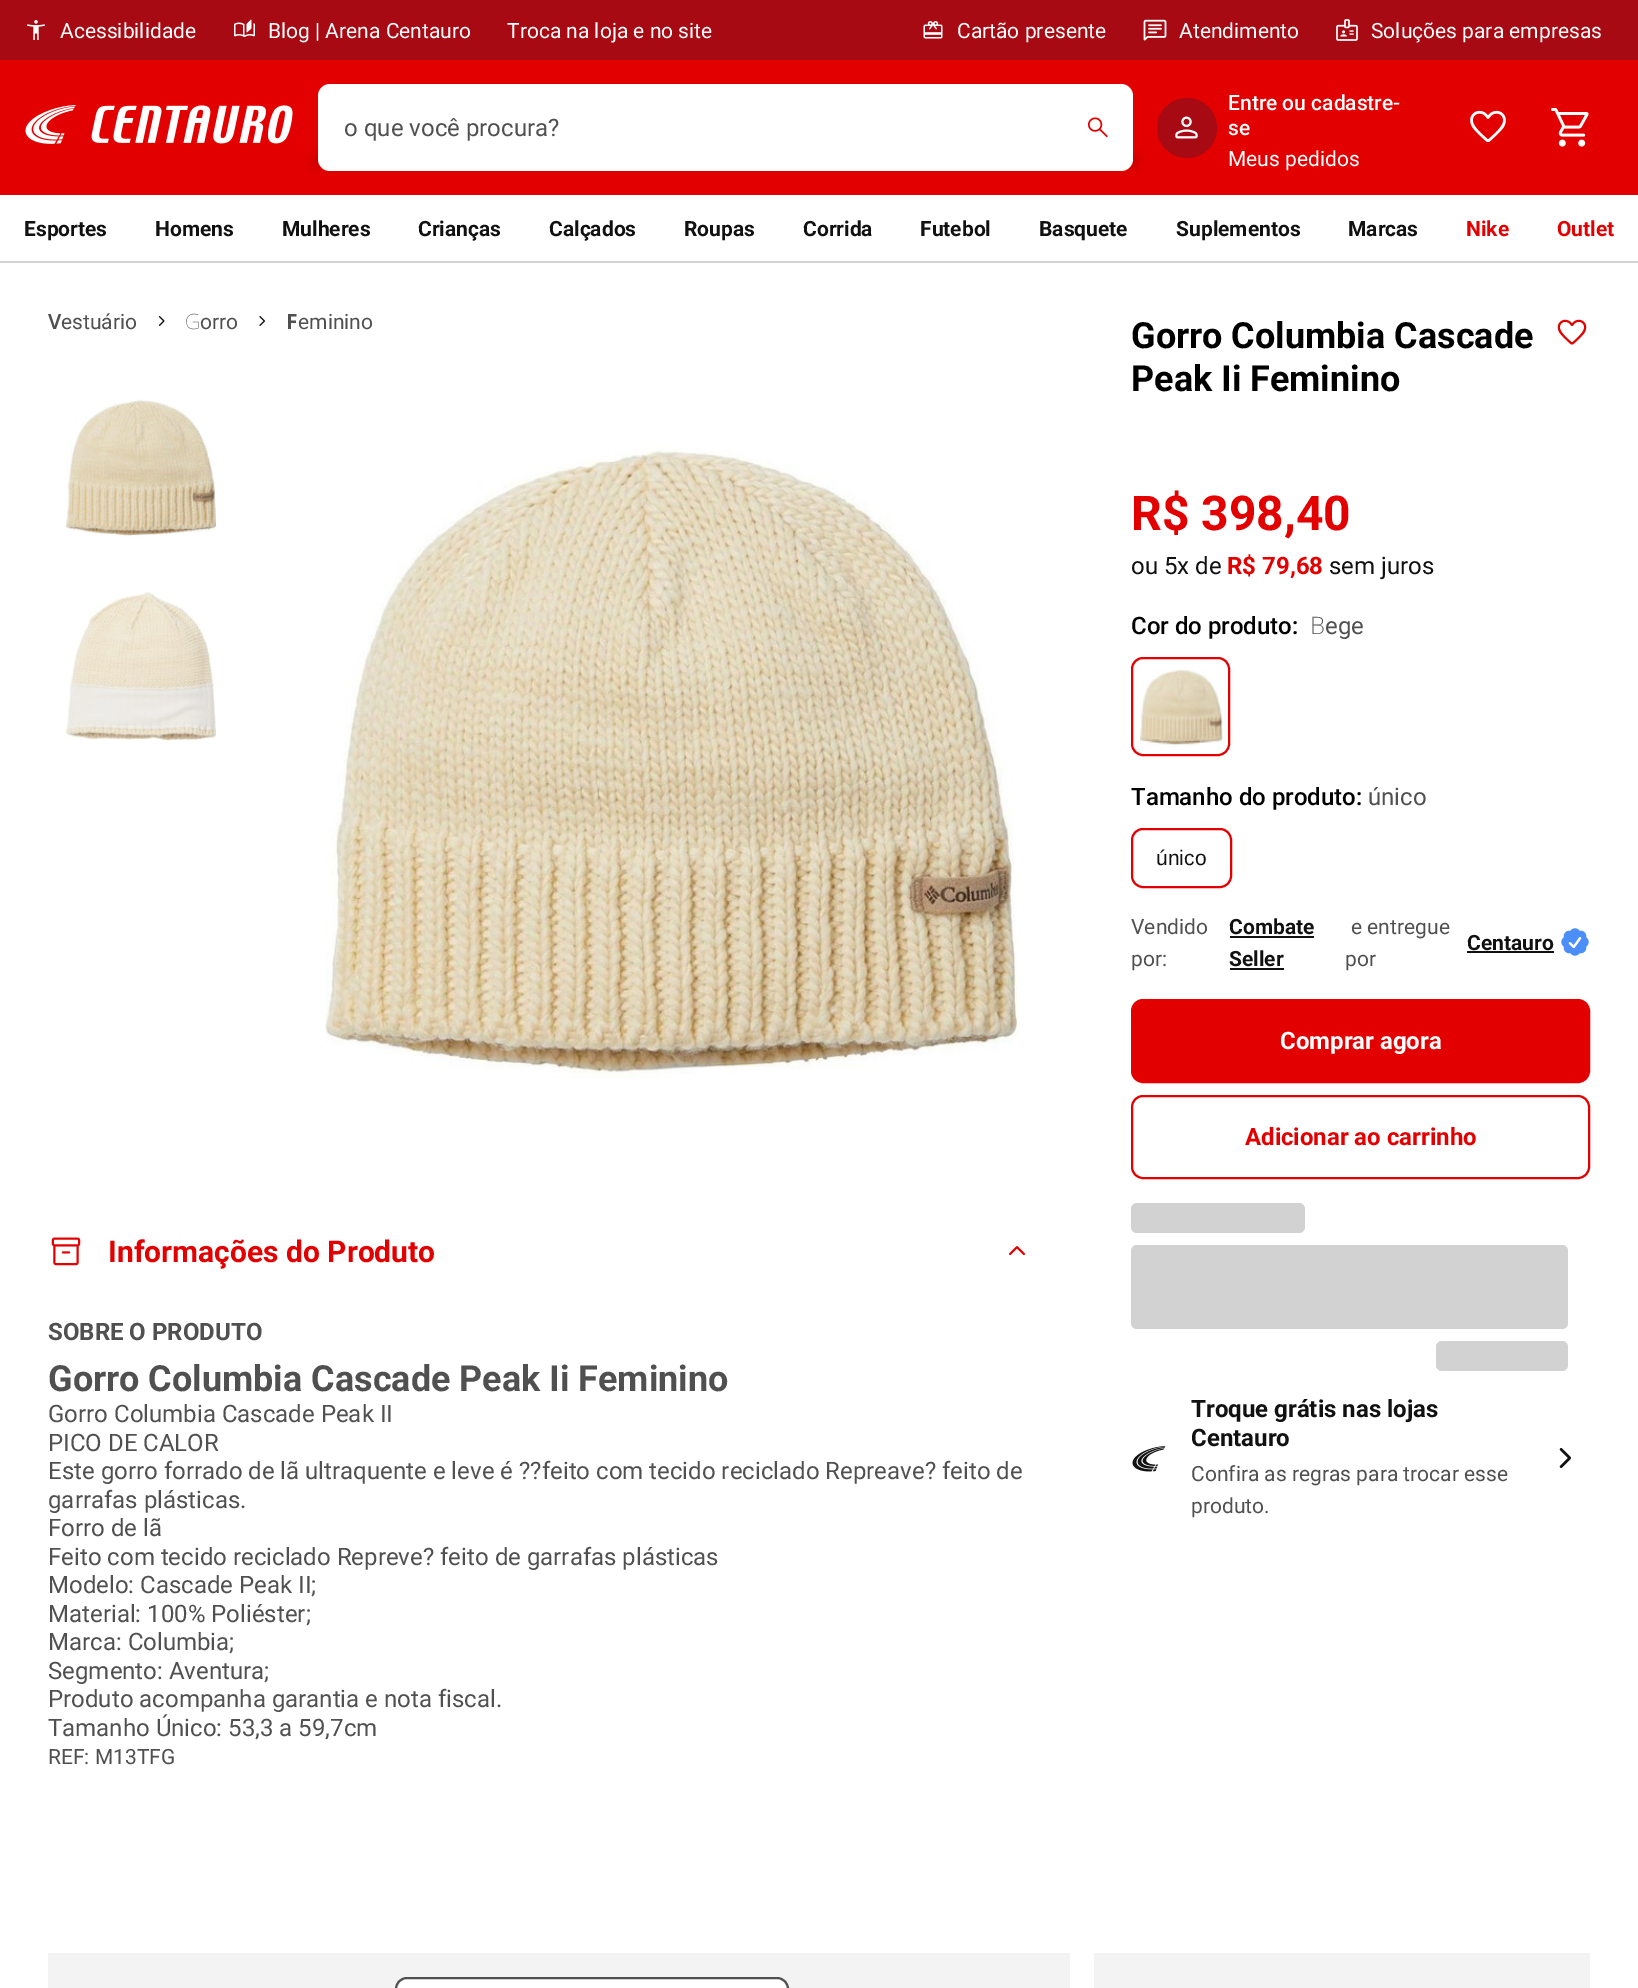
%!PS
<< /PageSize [1638 1988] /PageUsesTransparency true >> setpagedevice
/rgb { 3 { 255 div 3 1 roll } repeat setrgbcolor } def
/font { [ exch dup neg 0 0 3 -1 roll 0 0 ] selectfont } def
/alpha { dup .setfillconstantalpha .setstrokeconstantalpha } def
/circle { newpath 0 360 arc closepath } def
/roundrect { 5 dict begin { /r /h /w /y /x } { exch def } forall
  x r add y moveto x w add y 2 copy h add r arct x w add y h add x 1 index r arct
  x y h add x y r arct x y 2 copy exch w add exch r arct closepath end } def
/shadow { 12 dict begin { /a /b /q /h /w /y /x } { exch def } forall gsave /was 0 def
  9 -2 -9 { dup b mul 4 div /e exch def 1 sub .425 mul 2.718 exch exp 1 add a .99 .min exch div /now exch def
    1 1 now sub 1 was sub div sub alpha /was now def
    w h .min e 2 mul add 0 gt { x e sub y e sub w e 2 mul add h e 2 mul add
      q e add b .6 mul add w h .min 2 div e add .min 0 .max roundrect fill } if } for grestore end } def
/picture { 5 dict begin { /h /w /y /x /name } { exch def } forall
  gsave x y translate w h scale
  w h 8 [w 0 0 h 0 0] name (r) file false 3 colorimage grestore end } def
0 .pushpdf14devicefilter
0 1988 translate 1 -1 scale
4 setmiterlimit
255 255 255 rgb
0 0 1638 1988 rectfill
227 0 0 rgb
0 60 1638 135 rectfill
167 10 19 rgb
0 0 1638 60 rectfill
(img/1.rgb) 27 20 18 20 picture
(img/2.rgb) 234 19 21 18 picture
(img/3.rgb) 923 21 20 18 picture
(img/4.rgb) 1143 19 24 22 picture
(img/5.rgb) 1336 19 22 22 picture
(img/6.rgb) 25 105 268 39 picture
17 17 17 rgb
315 159 821 6 0 6 0.16 shadow
255 255 255 rgb
318 84 815 87 12 roundrect fill
(img/7.rgb) 1088 117 20 21 picture
167 10 19 rgb
1187 128 30 circle fill
(img/8.rgb) 1175 116 23 23 picture
(img/9.rgb) 1470 110 36 32 picture
(img/10.rgb) 1551 108 38 39 picture
210 210 210 rgb
0 261 1638 2 rectfill
(img/11.rgb) 158 316 7 10 picture
(img/12.rgb) 259 316 6 10 picture
(img/13.rgb) 1557 319 30 26 picture
227 0 0 rgb
2 setlinewidth
1132 658 97 97 11 roundrect stroke
(img/14.rgb) 1140 669 83 78 picture
1132 829 99 58 11 roundrect stroke
[
  [1230 936 84 2 17 17 17]
  [1230 968 54 2 17 17 17]
  [1467 951 87 2 17 17 17]
] { aload pop rgb rectfill } forall
(img/15.rgb) 1561 928 28 28 picture
227 0 0 rgb
1132 1000 457 82 11 roundrect gsave fill grestore
stroke
1132 1096 457 82 11 roundrect stroke
210 210 210 rgb
1131 1203 174 30 6 roundrect fill
1131 1245 437 84 6 roundrect fill
1436 1341 132 30 6 roundrect fill
(img/16.rgb) 1132 1446 34 26 picture
(img/17.rgb) 1559 1448 12 20 picture
(img/18.rgb) 66 399 150 138 picture
(img/19.rgb) 66 592 150 149 picture
(img/20.rgb) 66 592 150 149 picture
(img/21.rgb) 325 442 692 636 picture
(img/22.rgb) 325 1025 1 4 picture
(img/23.rgb) 51 1237 30 29 picture
(img/24.rgb) 1009 1246 16 10 picture
243 243 243 rgb
48 1953 1022 35 rectfill
255 255 255 rgb
396 1978 392 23 11 roundrect gsave fill grestore
80 80 80 rgb
stroke
243 243 243 rgb
1094 1953 496 35 rectfill
/Roboto-Regular 21 font
255 255 255 rgb
[
  [(Acessibilidade) 60 38]
  [(Blog | Arena Centauro) 268 38]
  [(Troca na loja e no site) 507 38]
  [(Cartão presente) 957 38]
  [(Atendimento) 1179 38]
  [(Soluções para empresas) 1371 38]
] { aload pop moveto show } forall
/Roboto-Regular 24 font
80 80 80 rgb
344 136 moveto (o que você procura?) show
/Roboto-Medium 21 font
255 255 255 rgb
1228 110 moveto (Entre ou cadastre-) show
1228 135 moveto (se) show
/Roboto-Regular 21 font
1228 166 moveto (Meus pedidos) show
/Roboto-Bold 21 font
17 17 17 rgb
[
  [(Esportes) 24 236]
  [(Homens) 155 236]
  [(Mulheres) 282 236]
  [(Crianças) 418 236]
  [(Calçados) 549 236]
  [(Roupas) 684 236]
  [(Corrida) 803 236]
  [(Futebol) 920 236]
  [(Basquete) 1039 236]
  [(Suplementos) 1176 236]
  [(Marcas) 1348 236]
] { aload pop moveto show } forall
227 0 0 rgb
1466 236 moveto (Nike) show
1557 236 moveto (Outlet) show
/NotoSans-SemiBold 21 font
80 80 80 rgb
48 329 moveto (V) show
/Roboto-Regular 21 font
61 329 moveto (estuário) show
/NotoSans-Thin 21 font
185 329 moveto (G) show
/Roboto-Regular 21 font
200 329 moveto (orro) show
/NotoSans-Bold 21 font
286 329 moveto (F) show
/Roboto-Regular 21 font
298 329 moveto (eminino) show
/Roboto-Bold 36 font
0 0 0 rgb
1131 348 moveto (Gorro Columbia Cascade) show
1131 391 moveto (Peak Ii Feminino) show
/Roboto-Bold 48 font
227 0 0 rgb
1131 530 moveto (R$ 398,40) show
/Roboto-Regular 24 font
17 17 17 rgb
1131 574 moveto (ou 5x de) show
/Roboto-Bold 24 font
227 0 0 rgb
1227 574 moveto (R$ 79,68) show
/Roboto-Regular 24 font
17 17 17 rgb
1329 574 moveto (sem juros) show
/Roboto-Medium 24 font
0 0 0 rgb
1131 634 moveto (Cor do produto:) show
/NotoSans-ExtraLight 24 font
80 80 80 rgb
1310 634 moveto (B) show
/Roboto-Regular 24 font
1325 634 moveto (ege) show
/Roboto-Medium 24 font
0 0 0 rgb
1131 805 moveto (Tamanho do produto:) show
/Roboto-Regular 24 font
80 80 80 rgb
1368 805 moveto (único) show
/LiberationSans-Regular 21 font
17 17 17 rgb
1156 865 moveto (único) show
/Roboto-Regular 21 font
80 80 80 rgb
1131 934 moveto (Vendido) show
/Roboto-Bold 21 font
17 17 17 rgb
1229 934 moveto (Combate) show
1229 966 moveto (Seller) show
/Roboto-Regular 21 font
80 80 80 rgb
1351 934 moveto (e entregue) show
/Roboto-Bold 21 font
17 17 17 rgb
1467 950 moveto (Centauro) show
/Roboto-Regular 21 font
80 80 80 rgb
1131 966 moveto (por:) show
1345 966 moveto (por) show
/Roboto-Bold 24 font
255 255 255 rgb
1280 1049 moveto (Comprar agora) show
227 0 0 rgb
1245 1145 moveto (Adicionar ao carrinho) show
17 17 17 rgb
1191 1417 moveto (Troque grátis nas lojas) show
1191 1446 moveto (Centauro) show
/Roboto-Regular 21 font
80 80 80 rgb
1191 1481 moveto (Confira as regras para trocar esse) show
1191 1513 moveto (produto.) show
/Roboto-Bold 30 font
227 0 0 rgb
108 1262 moveto (Informações do Produto) show
/Roboto-Bold 24 font
80 80 80 rgb
48 1340 moveto (SOBRE O PRODUTO) show
/Roboto-Bold 36 font
48 1391 moveto (Gorro Columbia Cascade Peak Ii Feminino) show
/Roboto-Regular 24 font
[
  [(Gorro Columbia Cascade Peak II) 48 1422]
  [(PICO DE CALOR) 48 1451]
  [(Este gorro forrado de lã ultraquente e leve é ??feito com tecido reciclado Repreave? feito de) 48 1479]
  [(garrafas plásticas.) 48 1508]
  [(Forro de lã) 48 1536]
  [(Feito com tecido reciclado Repreve? feito de garrafas plásticas) 48 1565]
  [(Modelo: Cascade Peak II;) 48 1593]
  [(Material: 100% Poliéster;) 48 1622]
  [(Marca: Columbia;) 48 1650]
  [(Segmento: Aventura;) 48 1679]
  [(Produto acompanha garantia e nota fiscal.) 48 1707]
  [(Tamanho Único: 53,3 a 59,7cm) 48 1736]
] { aload pop moveto show } forall
/Roboto-Regular 21 font
48 1764 moveto (REF: M13TFG) show
.poppdf14devicefilter showpage
